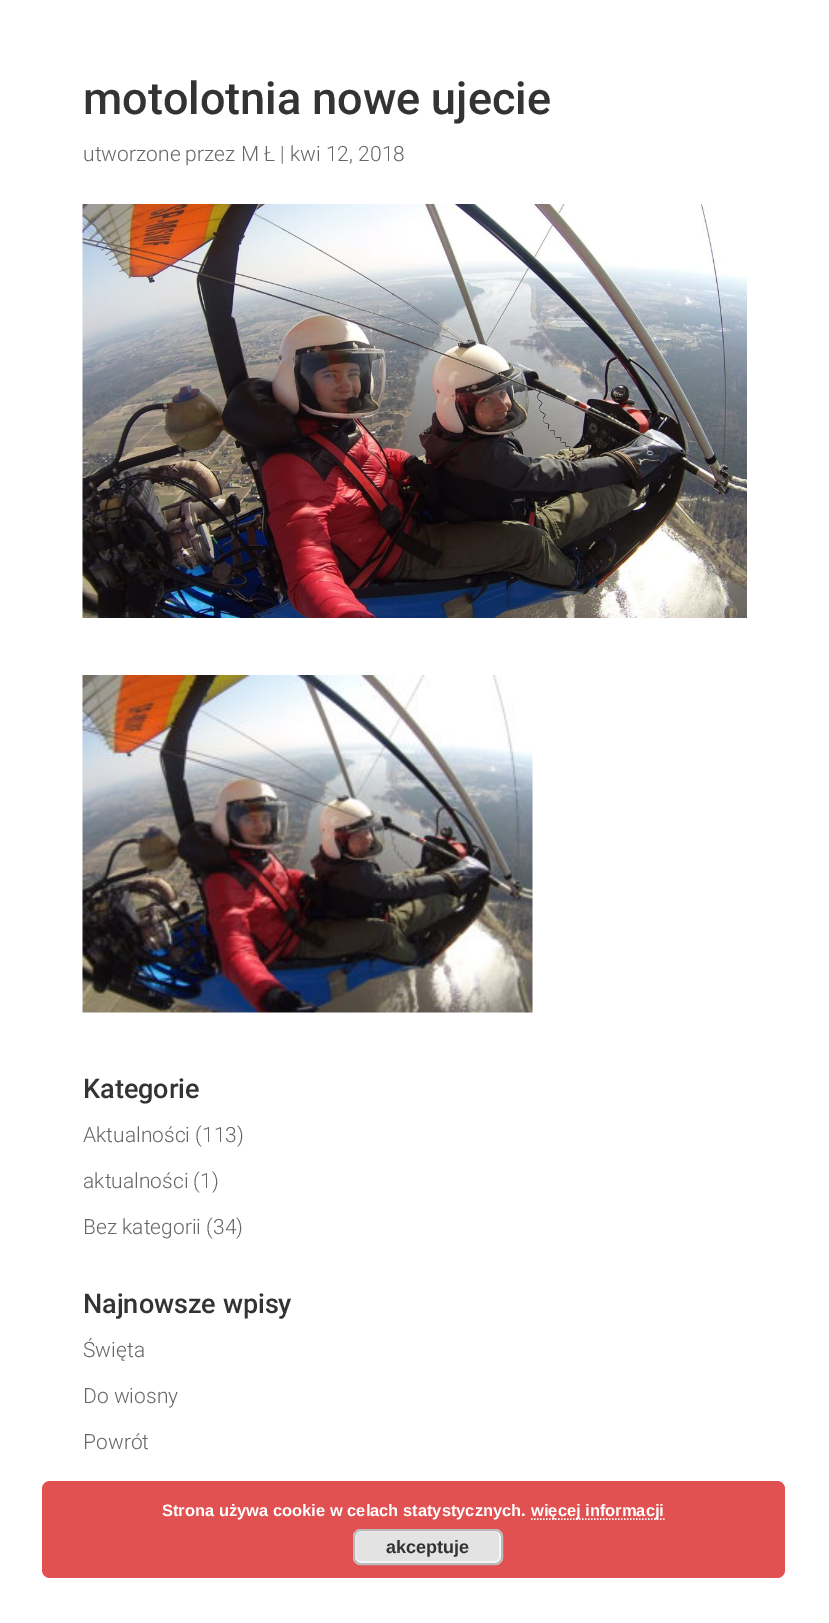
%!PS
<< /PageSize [829 1623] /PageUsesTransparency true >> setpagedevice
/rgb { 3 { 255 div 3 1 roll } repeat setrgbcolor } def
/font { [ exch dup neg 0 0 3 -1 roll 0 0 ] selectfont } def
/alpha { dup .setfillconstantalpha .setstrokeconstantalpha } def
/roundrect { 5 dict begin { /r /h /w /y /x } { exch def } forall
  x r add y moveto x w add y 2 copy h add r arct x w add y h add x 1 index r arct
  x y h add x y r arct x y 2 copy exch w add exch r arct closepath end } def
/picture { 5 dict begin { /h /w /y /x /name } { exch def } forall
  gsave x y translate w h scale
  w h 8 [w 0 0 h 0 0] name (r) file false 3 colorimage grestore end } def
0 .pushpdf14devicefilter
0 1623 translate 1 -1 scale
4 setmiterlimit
255 255 255 rgb
0 0 829 1623 rectfill
(img/1.rgb) 82 204 665 414 picture
(img/2.rgb) 82 675 451 338 picture
0.85 alpha
221 51 51 rgb
42 1481 743 97 8 roundrect fill
1 alpha
255 255 255 rgb
1.5 setlinewidth
[1.5 1.5] 0 setdash
531 1519 moveto 664.5 1519 lineto stroke
227 227 227 rgb
353 1529 150 36 8 roundrect fill
246 246 246 rgb
2 setlinewidth
[] 0 setdash
355 1531 145 31 5 roundrect stroke
187 187 187 rgb
354 1530 148 34 7 roundrect stroke
/Roboto-Medium 45 font
51 51 51 rgb
83 114 moveto (motolotnia nowe ujecie) show
/Roboto-Light 21 font
102 102 102 rgb
83 161 moveto (utworzone przez M Ł | kwi 12, 2018) show
/Roboto-Medium 27 font
51 51 51 rgb
83 1098 moveto (Kategorie) show
/Roboto-Light 21 font
102 102 102 rgb
[
  [(Aktualności \(113\)) 83 1142]
  [(aktualności \(1\)) 83 1188]
  [(Bez kategorii \(34\)) 83 1234]
] { aload pop moveto show } forall
/Roboto-Medium 27 font
51 51 51 rgb
83 1313 moveto (Najnowsze wpisy) show
/Roboto-Light 21 font
102 102 102 rgb
[
  [(Święta) 83 1357]
  [(Do wiosny) 83 1403]
  [(Powrót) 83 1449]
] { aload pop moveto show } forall
/LiberationSans-Bold 16.5 font
255 255 255 rgb
162 1516 moveto (Strona używa cookie w celach statystycznych.) show
531 1516 moveto (więcej informacji) show
/LiberationSans-Bold 18 font
51 51 51 rgb
386 1553 moveto (akceptuje) show
.poppdf14devicefilter showpage
